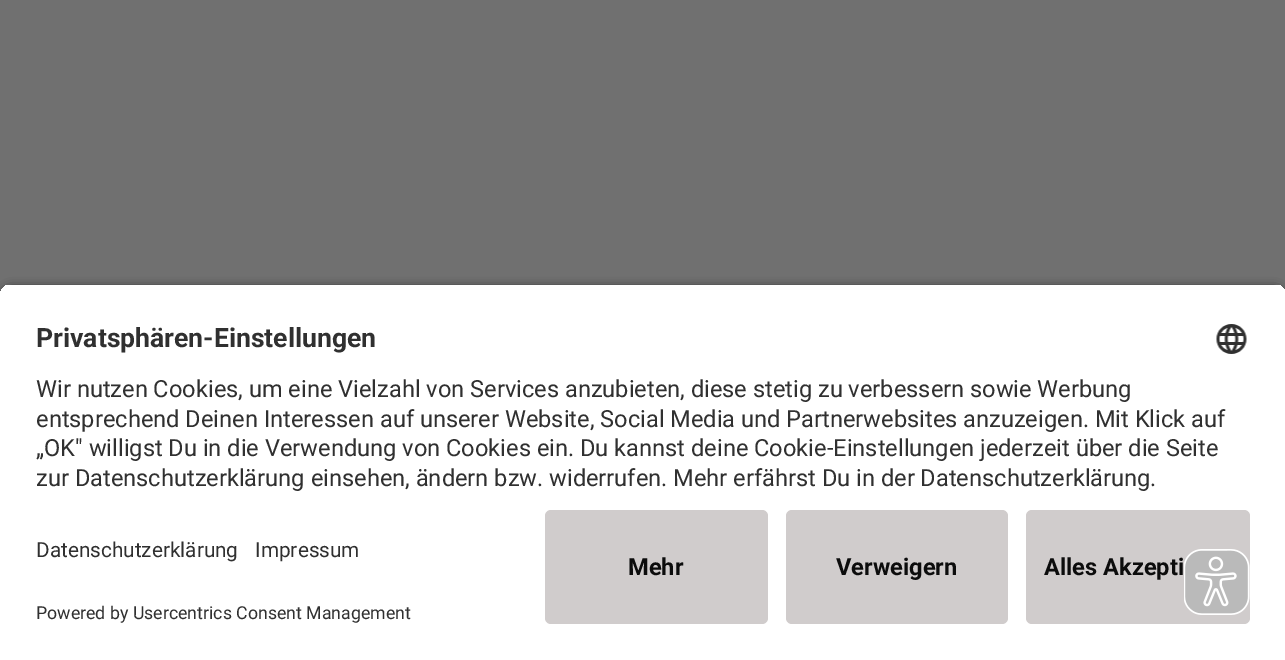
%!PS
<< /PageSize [1285 660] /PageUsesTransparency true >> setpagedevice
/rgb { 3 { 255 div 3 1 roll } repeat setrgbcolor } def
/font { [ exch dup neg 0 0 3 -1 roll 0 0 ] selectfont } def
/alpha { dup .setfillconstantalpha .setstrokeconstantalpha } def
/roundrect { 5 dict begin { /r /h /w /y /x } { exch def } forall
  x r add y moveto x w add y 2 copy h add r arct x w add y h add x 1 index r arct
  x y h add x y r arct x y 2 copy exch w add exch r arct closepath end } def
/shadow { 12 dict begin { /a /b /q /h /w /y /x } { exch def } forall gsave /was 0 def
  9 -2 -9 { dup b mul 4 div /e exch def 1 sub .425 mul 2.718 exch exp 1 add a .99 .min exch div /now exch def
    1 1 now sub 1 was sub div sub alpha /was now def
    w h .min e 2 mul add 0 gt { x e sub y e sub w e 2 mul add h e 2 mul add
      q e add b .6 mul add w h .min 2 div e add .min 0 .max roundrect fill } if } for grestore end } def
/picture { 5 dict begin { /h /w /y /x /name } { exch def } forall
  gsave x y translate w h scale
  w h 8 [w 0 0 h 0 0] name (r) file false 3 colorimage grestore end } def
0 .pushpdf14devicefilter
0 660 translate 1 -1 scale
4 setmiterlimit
112 112 112 rgb
0 0 1285 660 rectfill
0 0 0 rgb
0 288 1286 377 12 5 0.8 shadow
gsave
12 284 moveto 1274 284 lineto 1280.5 284 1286 289.5 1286 296 curveto 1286 498 lineto 0 498 lineto 0 296 lineto 0 289.5 5.5 284 12 284 curveto closepath clip newpath
255 255 255 rgb
0 285 1285 213 rectfill
grestore
(img/1.rgb) 1216 324 31 30 picture
255 255 255 rgb
0 498 1285 162 rectfill
208 204 204 rgb
545 510 223 114 6 roundrect fill
786 510 222 114 6 roundrect fill
1026 510 224 114 6 roundrect fill
(img/2.rgb) 1184 549 66 66 picture
/Roboto-Bold 26.6 font
48 48 48 rgb
36 347 moveto (Privatsphären-Einstellungen) show
/Roboto-Regular 23.62 font
[
  [(Wir nutzen Cookies, um eine Vielzahl von Services anzubieten, diese stetig zu verbessern sowie Werbung) 36 397]
  [(entsprechend Deinen Interessen auf unserer Website, Social Media und Partnerwebsites anzuzeigen. Mit Klick auf) 36 427]
  [(„OK" willigst Du in die Verwendung von Cookies ein. Du kannst deine Cookie-Einstellungen jederzeit über die Seite) 36 456]
  [(zur Datenschutzerklärung einsehen, ändern bzw. widerrufen. Mehr erfährst Du in der Datenschutzerklärung.) 36 486]
] { aload pop moveto show } forall
/Roboto-Regular 20.75 font
36 557 moveto (Datenschutzerklärung) show
255 557 moveto (Impressum) show
/Roboto-Regular 17.75 font
36 619 moveto (Powered by Usercentrics Consent Management) show
/Roboto-Bold 23.62 font
12 12 12 rgb
[
  [(Mehr) 628 575]
  [(Verweigern) 836 575]
  [(Alles Akzepti) 1044 575]
] { aload pop moveto show } forall
.poppdf14devicefilter showpage
